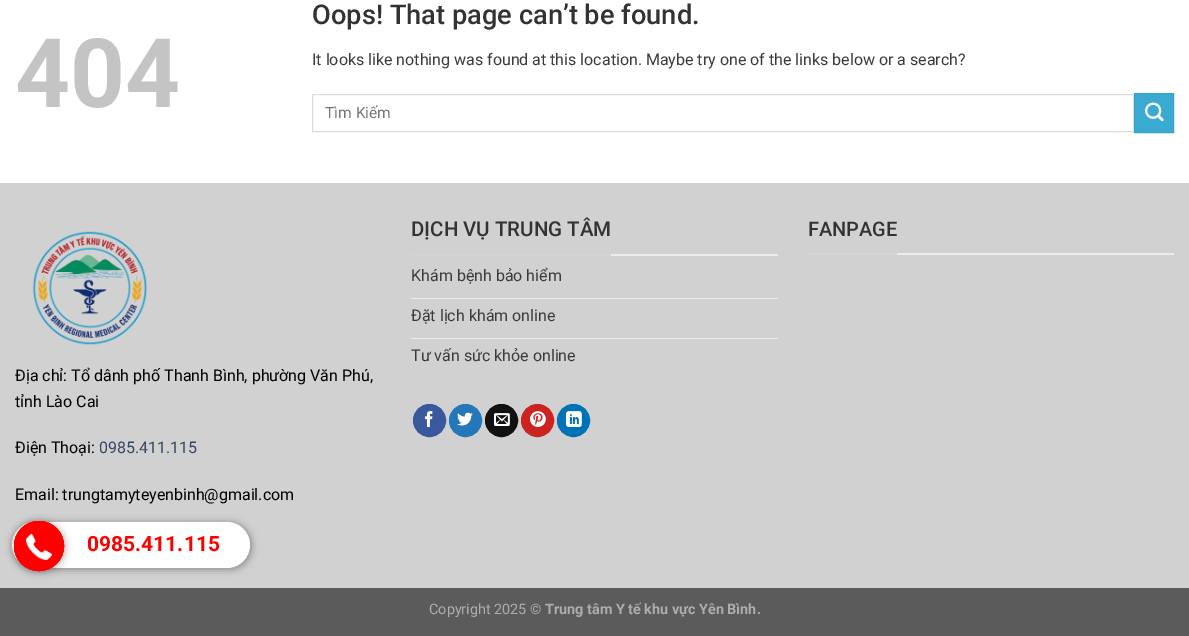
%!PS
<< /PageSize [1189 636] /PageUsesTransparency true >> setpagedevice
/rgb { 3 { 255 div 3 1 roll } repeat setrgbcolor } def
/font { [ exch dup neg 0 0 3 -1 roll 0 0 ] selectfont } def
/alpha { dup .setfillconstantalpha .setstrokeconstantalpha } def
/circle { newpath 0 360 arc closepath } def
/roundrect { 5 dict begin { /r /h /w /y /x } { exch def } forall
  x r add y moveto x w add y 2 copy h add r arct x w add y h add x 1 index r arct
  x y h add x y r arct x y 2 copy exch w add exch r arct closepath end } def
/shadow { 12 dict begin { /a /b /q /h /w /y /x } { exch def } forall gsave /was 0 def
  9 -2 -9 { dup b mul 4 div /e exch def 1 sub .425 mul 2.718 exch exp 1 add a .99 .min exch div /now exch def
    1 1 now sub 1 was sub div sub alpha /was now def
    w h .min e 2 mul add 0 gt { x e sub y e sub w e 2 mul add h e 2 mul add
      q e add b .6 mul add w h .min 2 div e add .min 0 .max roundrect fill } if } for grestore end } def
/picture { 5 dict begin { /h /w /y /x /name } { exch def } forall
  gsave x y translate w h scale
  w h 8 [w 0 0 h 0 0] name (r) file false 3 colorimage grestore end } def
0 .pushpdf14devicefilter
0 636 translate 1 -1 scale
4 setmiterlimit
255 255 255 rgb
0 0 1189 636 rectfill
221 221 221 rgb
312.5 94.5 821 37 rectstroke
58 170 210 rgb
1134.5 93.5 moveto 1173.5 93.5 lineto 1173.5 132.5 lineto 1134.5 132.5 lineto closepath gsave fill grestore
55 162 200 rgb
stroke
(img/1.rgb) 1145 102 19 20 picture
[
  [0 183 1189 405 209 209 209]
  [611 254 167 2 236 236 236]
  [411 254 200 2 212 212 212]
  [411 298 367 1 236 236 236]
  [411 338 367 1 236 236 236]
] { aload pop rgb rectfill } forall
58 88 157 rgb
429.5 420.5 16 circle gsave fill grestore
stroke
(img/2.rgb) 424 411 9 16 picture
36 120 186 rgb
465.5 420.5 16 circle gsave fill grestore
stroke
(img/3.rgb) 457 412 16 14 picture
17 17 17 rgb
501.5 420.5 16 circle gsave fill grestore
stroke
(img/4.rgb) 494 413 16 13 picture
203 35 32 rgb
537.5 420.5 16 circle gsave fill grestore
stroke
(img/5.rgb) 530 411 16 16 picture
0 114 183 rgb
573.5 420.5 16 circle gsave fill grestore
stroke
(img/6.rgb) 566 411 16 16 picture
236 236 236 rgb
897 253 277 2 rectfill
212 212 212 rgb
808 253 89 2 rectfill
(img/7.rgb) 32 231 116 114 picture
91 91 91 rgb
0 588 1189 48 rectfill
0 0 0 rgb
13 523 238 46 23 4 0.4 shadow
255 255 255 rgb
12 522 238 46 23 roundrect fill
0 0 0 rgb
15 522 50 50 25 4 0.3 shadow
255 0 0 rgb
39 546 25 circle fill
(img/8.rgb) 26 534 26 26 picture
39 546 24.5 circle stroke
39 546 24.5 circle stroke
/Roboto-Bold 96 font
196 196 196 rgb
15 107 moveto (404) show
/Roboto-Medium 27.25 font
51 51 51 rgb
312 24 moveto (Oops! That page can’t be found.) show
/Roboto-Regular 16 font
59 59 59 rgb
312 65 moveto (It looks like nothing was found at this location. Maybe try one of the links below or a search?) show
/Roboto-Regular 15.5 font
117 117 117 rgb
325 118 moveto (Tìm Kiếm) show
/Roboto-Medium 20.5 font
51 51 51 rgb
411 236 moveto (DỊCH VỤ TRUNG TÂM) show
/Roboto-Regular 16 font
59 59 59 rgb
[
  [(Khám bệnh bảo hiểm) 411 281]
  [(Đặt lịch khám online) 411 321]
  [(Tư vấn sức khỏe online) 411 361]
] { aload pop moveto show } forall
/Roboto-Medium 20 font
51 51 51 rgb
808 236 moveto (FANPAGE) show
/Roboto-Regular 16 font
0 0 0 rgb
[
  [(Địa chỉ: Tổ dânh phố Thanh Bình, phường Văn Phú,) 15 381]
  [(tỉnh Lào Cai) 15 407]
  [(Điện Thoại:) 15 453]
] { aload pop moveto show } forall
51 72 98 rgb
99 453 moveto (0985.411.115) show
0 0 0 rgb
15 500 moveto (Email: trungtamyteyenbinh@gmail.com) show
/Roboto-Regular 14.4 font
173 173 173 rgb
429 614 moveto (Copyright 2025 ©) show
/Roboto-Bold 14.4 font
545 614 moveto (Trung tâm Y tế khu vực Yên Bình.) show
/Roboto-Bold 21 font
255 0 0 rgb
87 551 moveto (0985.411.115) show
.poppdf14devicefilter showpage
